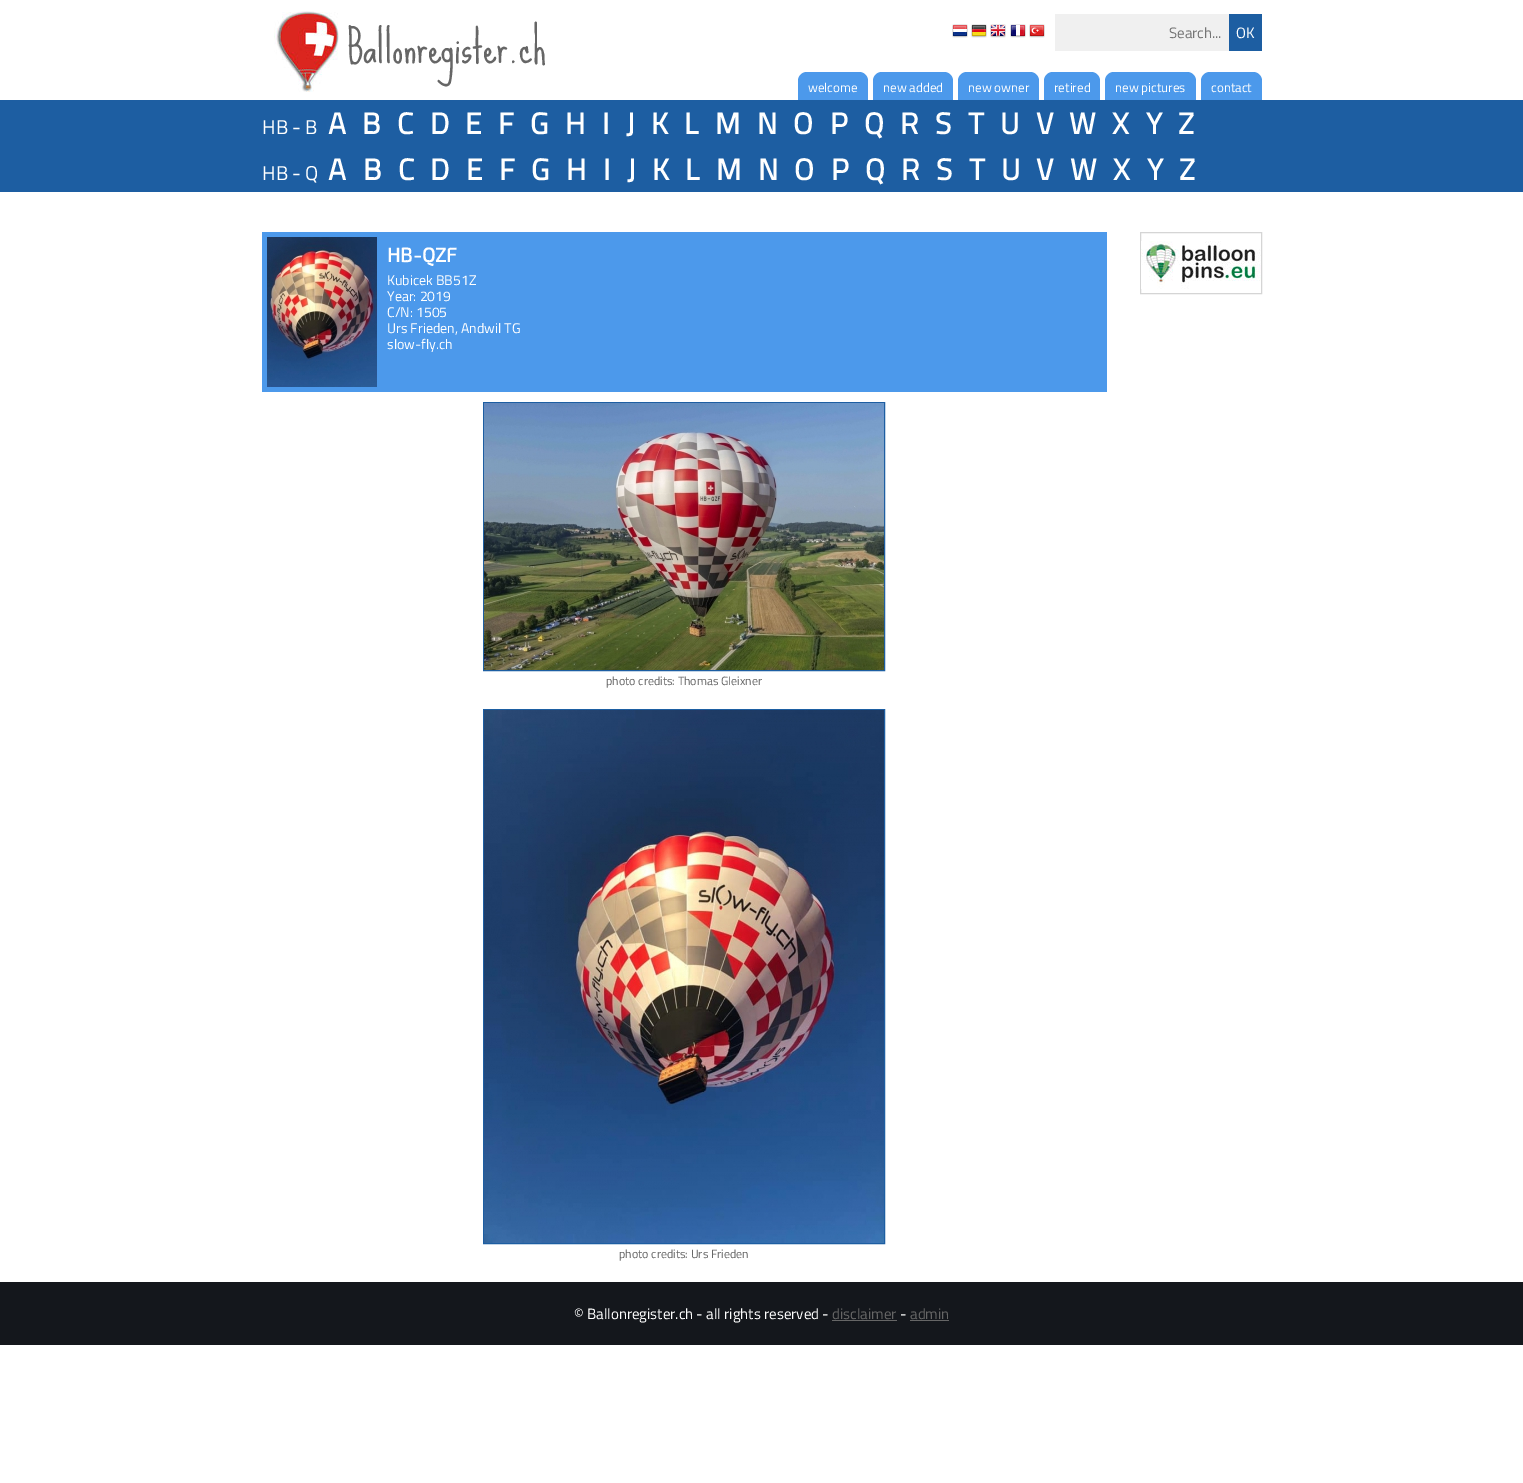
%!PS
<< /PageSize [1523 1483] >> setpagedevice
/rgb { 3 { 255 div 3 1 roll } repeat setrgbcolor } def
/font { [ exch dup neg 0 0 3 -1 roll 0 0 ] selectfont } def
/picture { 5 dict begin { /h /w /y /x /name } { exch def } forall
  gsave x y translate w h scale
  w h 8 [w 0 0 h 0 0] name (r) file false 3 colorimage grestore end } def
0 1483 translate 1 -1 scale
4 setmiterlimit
255 255 255 rgb
0 0 1523 1483 rectfill
(img/1.rgb) 274 11 65 81 picture
(img/2.rgb) 952 24 16 14 picture
(img/3.rgb) 971 24 16 14 picture
(img/4.rgb) 990 24 16 14 picture
(img/5.rgb) 1010 24 16 14 picture
(img/6.rgb) 1029 24 16 14 picture
240 240 240 rgb
1055 14 174 37 rectfill
29 94 162 rgb
1229 14 33 37 rectfill
76 153 235 rgb
807 72 moveto 859 72 lineto 864 72 868 76 868 81 curveto 868 100 lineto 798 100 lineto 798 81 lineto 798 76 802 72 807 72 curveto closepath fill
882 72 moveto 944 72 lineto 949 72 953 76 953 81 curveto 953 100 lineto 873 100 lineto 873 81 lineto 873 76 877 72 882 72 curveto closepath fill
967 72 moveto 1030 72 lineto 1035 72 1039 76 1039 81 curveto 1039 100 lineto 958 100 lineto 958 81 lineto 958 76 962 72 967 72 curveto closepath fill
1053 72 moveto 1091 72 lineto 1096 72 1100 76 1100 81 curveto 1100 100 lineto 1044 100 lineto 1044 81 lineto 1044 76 1048 72 1053 72 curveto closepath fill
1114 72 moveto 1187 72 lineto 1192 72 1196 76 1196 81 curveto 1196 100 lineto 1105 100 lineto 1105 81 lineto 1105 76 1109 72 1114 72 curveto closepath fill
1210 72 moveto 1253 72 lineto 1258 72 1262 76 1262 81 curveto 1262 100 lineto 1201 100 lineto 1201 81 lineto 1201 76 1205 72 1210 72 curveto closepath fill
29 94 162 rgb
0 100 1523 92 rectfill
76 153 235 rgb
262 232 845 160 rectfill
(img/7.rgb) 267 237 110 150 picture
213 213 213 rgb
1140.5 232.5 121 61 rectstroke
(img/8.rgb) 1141 241 120 48 picture
29 94 162 rgb
483.5 402.5 401 268 rectstroke
(img/9.rgb) 484 403 400 267 picture
483.5 709.5 401 534 rectstroke
(img/10.rgb) 484 710 400 533 picture
[
  [0 1282 1523 63 20 23 28]
  [832 1320 65 1 102 102 102]
  [910 1320 39 1 102 102 102]
] { aload pop rgb rectfill } forall
/SueEllenFrancisco-Regular 44 font
347 63 moveto (Ballonregister.ch) show
/TitilliumWeb-Regular 15 font
117 117 117 rgb
1169 38 moveto (Search...) show
255 255 255 rgb
1236 38 moveto (OK) show
/TitilliumWeb-Regular 13 font
[
  [(welcome) 808 92]
  [(new added) 883 92]
  [(new owner) 968 92]
  [(retired) 1054 92]
  [(new pictures) 1115 92]
  [(contact) 1211 92]
] { aload pop moveto show } forall
/TitilliumWeb-Regular 20 font
262 134 moveto (HB - B) show
/TitilliumWeb-Bold 30 font
[
  [(A) 328 134]
  [(B) 362 134]
  [(C) 397 134]
  [(D) 430 134]
  [(E) 465 134]
  [(F) 498 134]
  [(G) 530 134]
  [(H) 565 134]
  [(I) 602 134]
  [(J) 626 134]
  [(K) 651 134]
  [(L) 684 134]
  [(M) 715 134]
  [(N) 757 134]
  [(O) 793 134]
  [(P) 830 134]
  [(Q) 864 134]
  [(R) 900 134]
  [(S) 935 134]
  [(T) 968 134]
  [(U) 1000 134]
  [(V) 1036 134]
  [(W) 1069 134]
  [(X) 1112 134]
  [(Y) 1146 134]
  [(Z) 1178 134]
] { aload pop moveto show } forall
/TitilliumWeb-Regular 20 font
262 180 moveto (HB - Q) show
/TitilliumWeb-Bold 30 font
[
  [(A) 328 180]
  [(B) 363 180]
  [(C) 398 180]
  [(D) 430 180]
  [(E) 466 180]
  [(F) 499 180]
  [(G) 531 180]
  [(H) 566 180]
  [(I) 603 180]
  [(J) 627 180]
  [(K) 652 180]
  [(L) 685 180]
  [(M) 716 180]
  [(N) 758 180]
  [(O) 794 180]
  [(P) 831 180]
  [(Q) 865 180]
  [(R) 901 180]
  [(S) 936 180]
  [(T) 969 180]
  [(U) 1001 180]
  [(V) 1036 180]
  [(W) 1070 180]
  [(X) 1113 180]
  [(Y) 1147 180]
  [(Z) 1179 180]
] { aload pop moveto show } forall
/Exo2-Bold 20 font
387 262 moveto (HB-QZF) show
/TitilliumWeb-Regular 14 font
[
  [(Kubicek BB51Z) 387 285]
  [(Year: 2019) 387 301]
  [(C/N: 1505) 387 317]
  [(Urs Frieden, Andwil TG) 387 333]
  [(slow-fly.ch) 387 349]
] { aload pop moveto show } forall
/TitilliumWeb-Regular 12 font
102 102 102 rgb
606 685 moveto (photo credits: Thomas Gleixner) show
619 1258 moveto (photo credits: Urs Frieden) show
/TitilliumWeb-Regular 15 font
255 255 255 rgb
574 1319 moveto (© Ballonregister.ch - all rights reserved -) show
102 102 102 rgb
832 1319 moveto (disclaimer) show
255 255 255 rgb
900 1319 moveto (-) show
102 102 102 rgb
910 1319 moveto (admin) show
showpage
